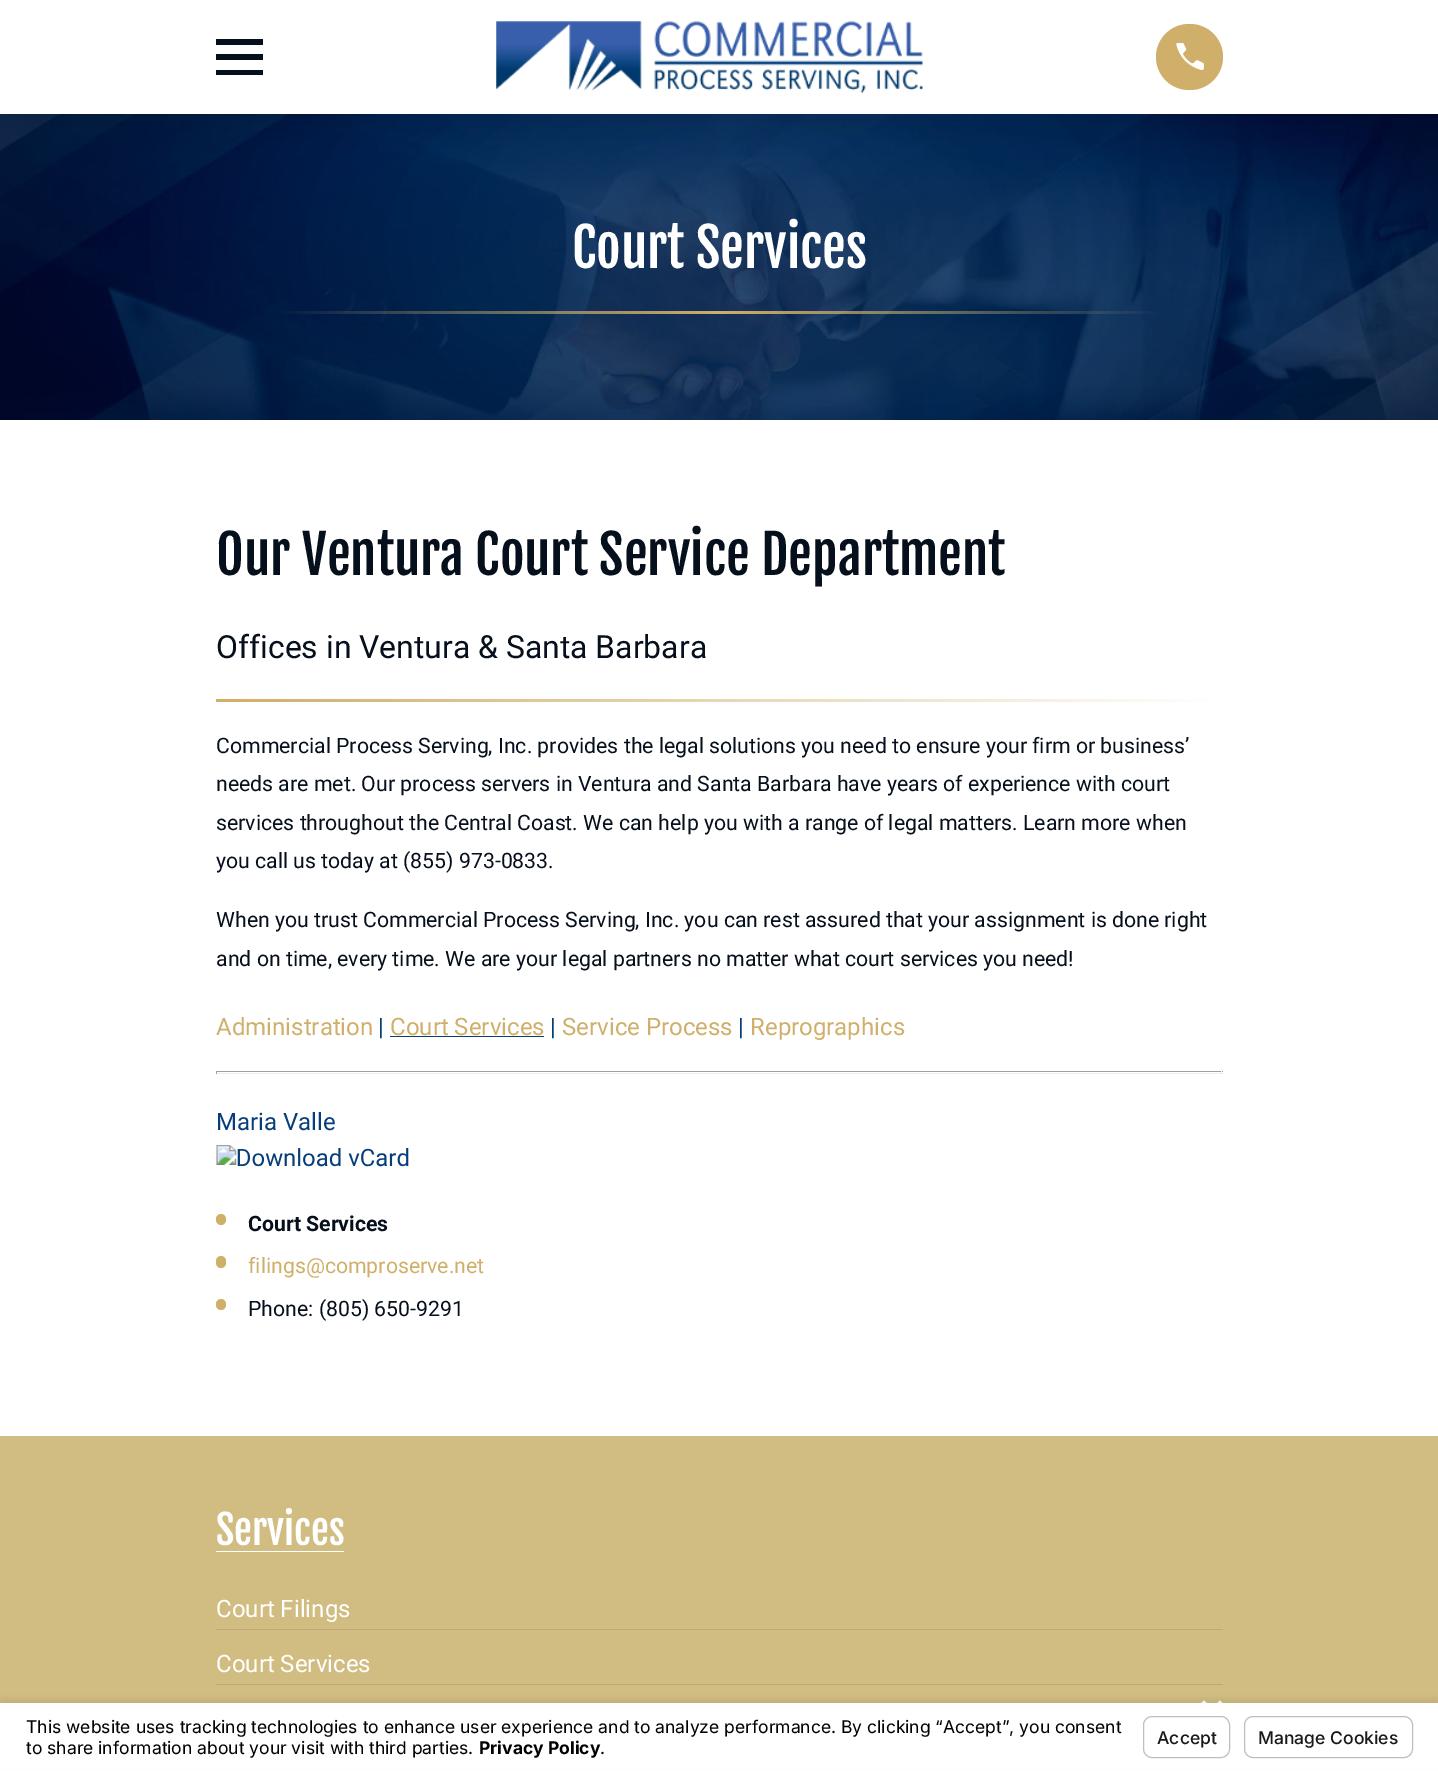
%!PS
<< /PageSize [1438 1771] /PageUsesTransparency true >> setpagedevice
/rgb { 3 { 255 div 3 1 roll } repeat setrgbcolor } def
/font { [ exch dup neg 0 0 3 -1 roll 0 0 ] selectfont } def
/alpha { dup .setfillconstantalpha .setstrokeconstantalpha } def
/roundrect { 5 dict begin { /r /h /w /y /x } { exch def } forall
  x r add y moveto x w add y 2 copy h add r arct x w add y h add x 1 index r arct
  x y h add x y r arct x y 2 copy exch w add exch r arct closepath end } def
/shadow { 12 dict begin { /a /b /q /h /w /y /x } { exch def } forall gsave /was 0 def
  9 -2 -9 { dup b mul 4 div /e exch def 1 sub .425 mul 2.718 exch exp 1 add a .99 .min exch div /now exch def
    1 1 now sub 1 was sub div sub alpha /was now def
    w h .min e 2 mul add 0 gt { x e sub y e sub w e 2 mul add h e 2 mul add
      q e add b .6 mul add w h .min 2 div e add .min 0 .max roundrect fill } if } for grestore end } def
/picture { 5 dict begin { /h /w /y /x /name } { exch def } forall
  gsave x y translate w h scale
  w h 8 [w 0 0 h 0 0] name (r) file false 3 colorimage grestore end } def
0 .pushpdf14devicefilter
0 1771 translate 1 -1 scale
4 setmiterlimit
255 255 255 rgb
0 0 1438 1771 rectfill
6 15 28 rgb
216 39 moveto 216 45 lineto 263 45 lineto 263 39 lineto closepath 216 54 moveto 216 60 lineto 263 60 lineto 263 54 lineto closepath 216 70 moveto 216 75 lineto 263 75 lineto 263 70 lineto closepath fill
(img/1.rgb) 496 21 427 72 picture
207 175 105 rgb
1156 24 67 66 33 roundrect fill
(img/2.rgb) 1176 43 28 27 picture
(img/3.rgb) 0 114 1438 306 picture
gsave 216 699 moveto 1206 699 lineto 1206 702 lineto 216 702 lineto closepath clip newpath
<< /ShadingType 2 /ColorSpace /DeviceRGB /Coords [216 700 1223 700] /Extend [true true] /Function << /FunctionType 2 /Domain [0 1] /C0 [0.812 0.686 0.412] /C1 [1 1 1] /N 1 >> >> shfill grestore
[
  [390 1036 154 1 7 62 122]
  [216 1071 1007 1 159 159 159]
  [1221 1071 1 3 238 238 238]
  [216 1073 1007 1 238 238 238]
  [216 1071 1 3 159 159 159]
] { aload pop rgb rectfill } forall
(img/4.rgb) 216 1145 193 22 picture
207 175 105 rgb
216 1214 10 11 5 roundrect fill
216 1256 10 12 5 roundrect fill
216 1299 10 11 5 roundrect fill
[
  [0 1436 1438 267 209 188 129]
  [216 1551 128 1 255 255 255]
  [216 1629 1007 1 188 169 116]
  [216 1684 1007 1 188 169 116]
] { aload pop rgb rectfill } forall
255 255 255 rgb
1212 1708 moveto 1204 1700.5 lineto 1201 1703 lineto 1212 1713.5 lineto 1222.5 1703 lineto 1220 1700.5 lineto closepath fill
0 0 0 rgb
0 1698 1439 68 0 2 0.05 shadow
255 255 255 rgb
0 1703 1438 65 rectfill
188 190 199 rgb
1143.5 1716.5 86 41 8.5 roundrect stroke
1244.5 1716.5 168 41 8.5 roundrect stroke
/FjallaOne-Regular 53.2 font
255 255 255 rgb
572 268 moveto (Court Services) show
6 15 28 rgb
216 575 moveto (Our Ventura Court Service Department) show
/Roboto-Regular 31.9 font
216 658 moveto (Offices in Ventura & Santa Barbara) show
/Roboto-Regular 21.25 font
[
  [(Commercial Process Serving, Inc. provides the legal solutions you need) 216 753]
  [(to ensure your firm or business’) 892 753]
  [(needs are met. Our process servers in Ventura and Santa Barbara have years of experience with court) 216 791]
  [(services throughout the Central Coast. We can help you with a range of legal matters.) 216 830]
  [(Learn more when) 1023 830]
  [(you call us today at \(855\) 973-0833.) 216 868]
  [(When you trust Commercial Process Serving, Inc. you can rest assured that) 216 927]
  [(your assignment is done right) 928 927]
  [(and on time, every time. We are your legal partners no matter what court services you need!) 216 966]
] { aload pop moveto show } forall
/Roboto-Regular 24 font
207 175 105 rgb
216 1035 moveto (Administration) show
7 62 122 rgb
378 1035 moveto (|) show
207 175 105 rgb
390 1035 moveto (Court Services) show
7 62 122 rgb
550 1035 moveto (|) show
207 175 105 rgb
562 1035 moveto (Service Process) show
7 62 122 rgb
738 1035 moveto (|) show
207 175 105 rgb
750 1035 moveto (Reprographics) show
7 62 122 rgb
216 1130 moveto (Maria Valle) show
/Roboto-Bold 21.25 font
6 15 28 rgb
248 1231 moveto (Court Services) show
/Roboto-Regular 21.25 font
207 175 105 rgb
248 1273 moveto (filings@comproserve.net) show
6 15 28 rgb
248 1316 moveto (Phone: \(805\) 650-9291) show
/FjallaOne-Regular 40 font
255 255 255 rgb
216 1545 moveto (Services) show
/Roboto-Regular 24 font
216 1617 moveto (Court Filings) show
216 1672 moveto (Court Services) show
/Inter-Regular 17.5 font
0 0 0 rgb
26 1733 moveto (This website uses tracking technologies to enhance user experience and to analyze performance. By clicking “Accept”, you consent) show
26 1754 moveto (to share information about your visit with third parties.) show
/Inter-Bold 17.5 font
479 1754 moveto (Privacy Policy) show
/Inter-Regular 17.5 font
600 1754 moveto (.) show
/Inter-Medium 17.5 font
25 25 25 rgb
1157 1744 moveto (Accept) show
1258 1744 moveto (Manage Cookies) show
.poppdf14devicefilter showpage
